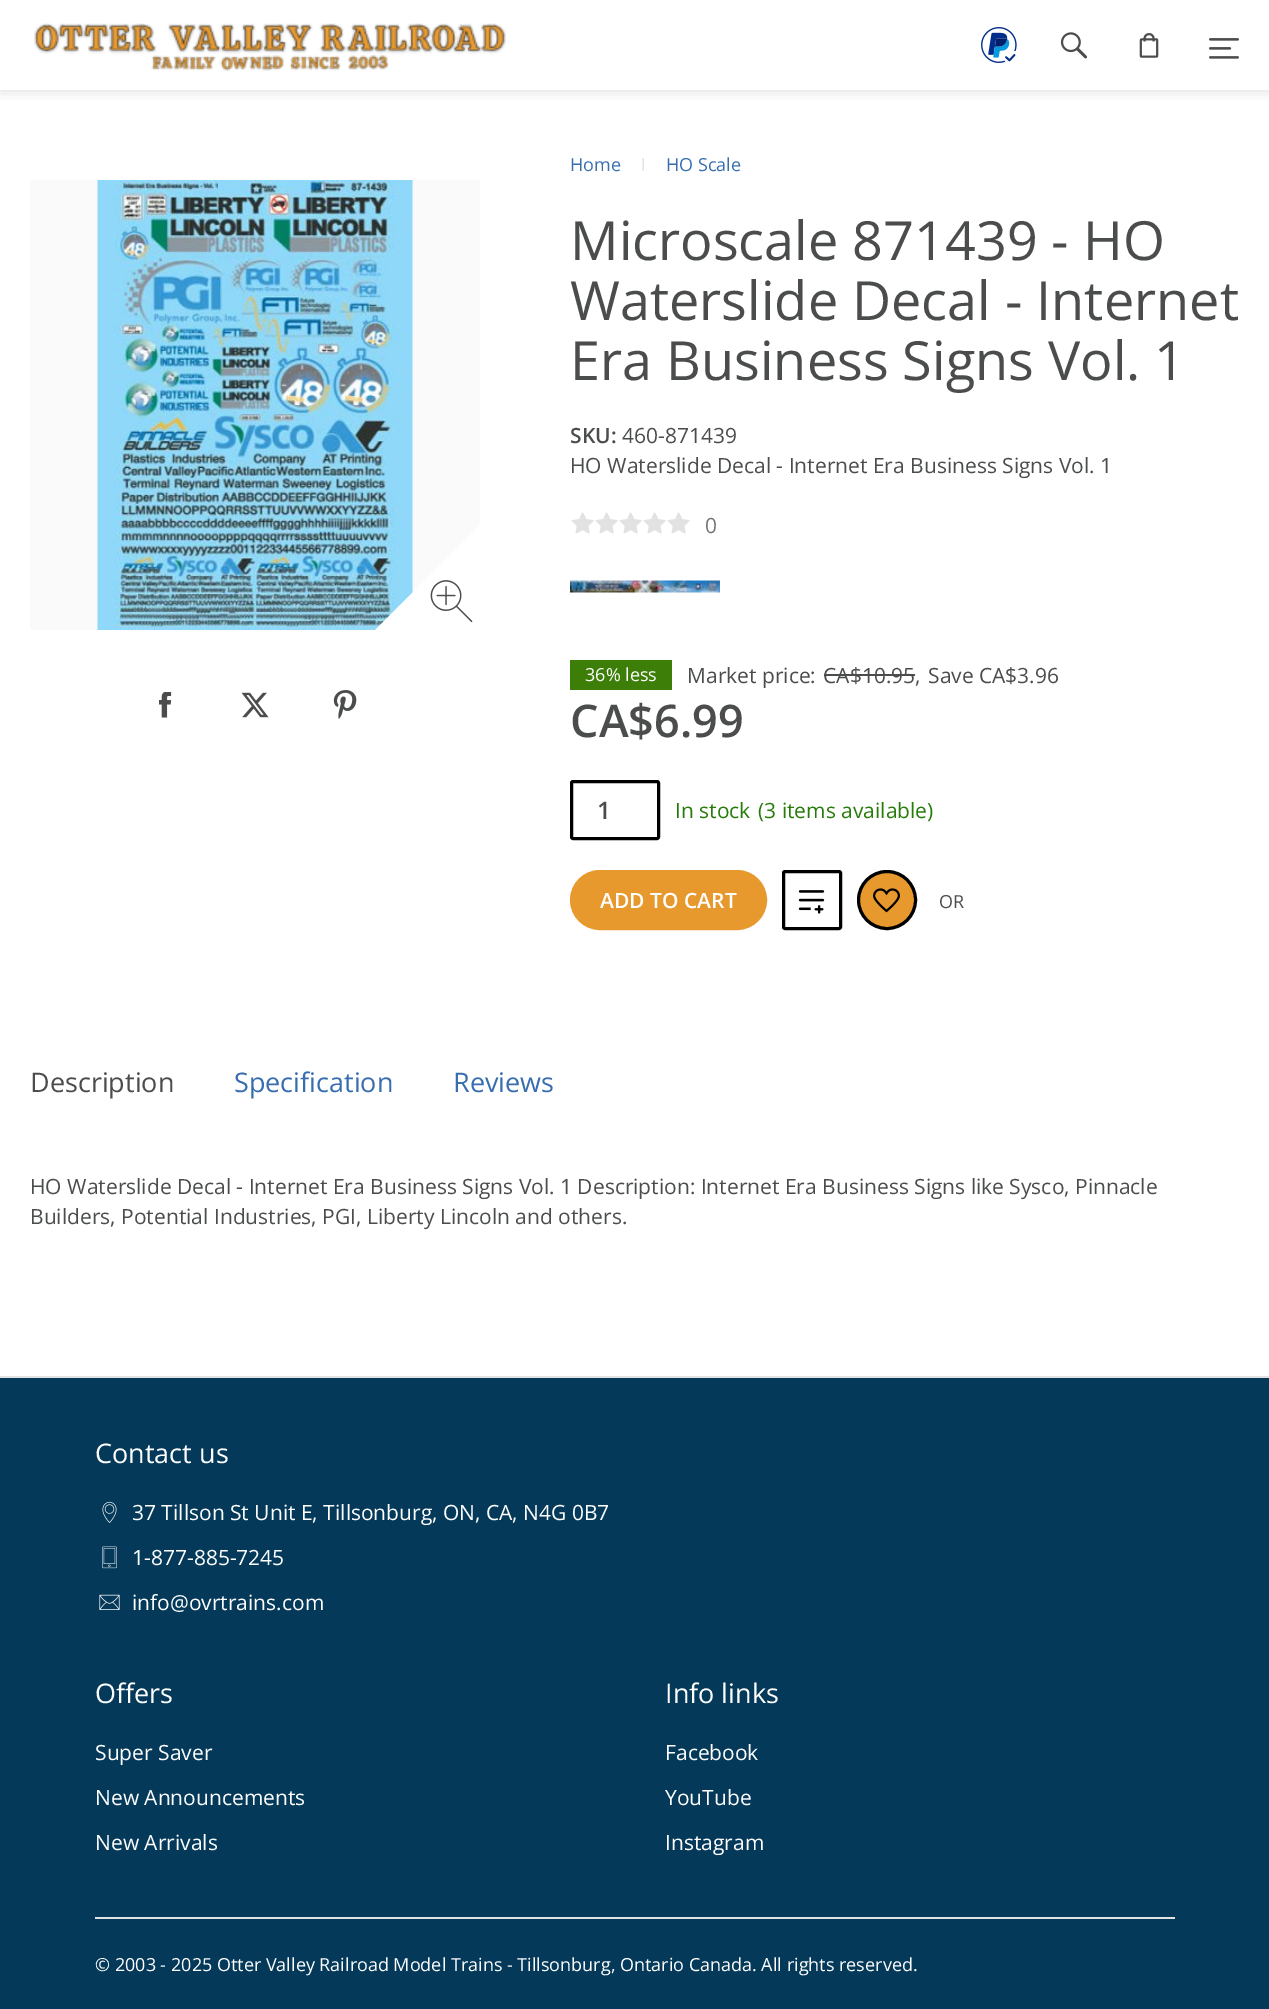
%!PS
<< /PageSize [1269 2009] /PageUsesTransparency true >> setpagedevice
/rgb { 3 { 255 div 3 1 roll } repeat setrgbcolor } def
/font { [ exch dup neg 0 0 3 -1 roll 0 0 ] selectfont } def
/alpha { dup .setfillconstantalpha .setstrokeconstantalpha } def
/circle { newpath 0 360 arc closepath } def
/roundrect { 5 dict begin { /r /h /w /y /x } { exch def } forall
  x r add y moveto x w add y 2 copy h add r arct x w add y h add x 1 index r arct
  x y h add x y r arct x y 2 copy exch w add exch r arct closepath end } def
/shadow { 12 dict begin { /a /b /q /h /w /y /x } { exch def } forall gsave /was 0 def
  9 -2 -9 { dup b mul 4 div /e exch def 1 sub .425 mul 2.718 exch exp 1 add a .99 .min exch div /now exch def
    1 1 now sub 1 was sub div sub alpha /was now def
    w h .min e 2 mul add 0 gt { x e sub y e sub w e 2 mul add h e 2 mul add
      q e add b .6 mul add w h .min 2 div e add .min 0 .max roundrect fill } if } for grestore end } def
/picture { 5 dict begin { /h /w /y /x /name } { exch def } forall
  gsave x y translate w h scale
  w h 8 [w 0 0 h 0 0] name (r) file false 3 colorimage grestore end } def
0 .pushpdf14devicefilter
0 2009 translate 1 -1 scale
4 setmiterlimit
255 255 255 rgb
0 0 1269 2009 rectfill
gsave
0 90 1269 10 rectclip
74 73 74 rgb
0 0 1269 90 0 7.5 0.2 shadow
grestore
(img/1.rgb) 34 23 472 48 picture
(img/2.rgb) 981 27 36 36 picture
(img/3.rgb) 1060 32 28 27 picture
(img/4.rgb) 1139 33 20 25 picture
(img/5.rgb) 1209 38 30 21 picture
250 250 250 rgb
30 180 450 450 3 roundrect fill
(img/6.rgb) 97 180 316 450 picture
255 255 255 rgb
480 630 moveto 375 630 lineto 480 525 lineto closepath fill
(img/7.rgb) 430 580 43 43 picture
(img/8.rgb) 159 692 13 26 picture
(img/9.rgb) 241 692 28 26 picture
(img/10.rgb) 333 690 24 29 picture
(img/11.rgb) 571 512 23 22 picture
(img/11.rgb) 595 512 23 22 picture
(img/11.rgb) 619 512 23 22 picture
(img/11.rgb) 643 512 23 22 picture
(img/11.rgb) 667 512 23 22 picture
(img/12.rgb) 570 580 150 13 picture
60 126 7 rgb
570 660 102 30 rectfill
75 77 77 rgb
824 674 91 2 rectfill
0 0 0 rgb
3 setlinewidth
571.5 781.5 87 57 1.5 roundrect stroke
231 153 45 rgb
571.5 871.5 194 57 28.5 roundrect gsave fill grestore
stroke
0 0 0 rgb
783.5 871.5 57 57 1.5 roundrect stroke
(img/13.rgb) 798 890 27 24 picture
231 153 45 rgb
887 900 28.5 circle gsave fill grestore
0 0 0 rgb
stroke
(img/14.rgb) 873 888 27 25 picture
4 57 89 rgb
0 1378 1269 631 rectfill
226 226 226 rgb
0 1376 1269 2 rectfill
(img/15.rgb) 102 1501 15 22 picture
(img/16.rgb) 102 1546 15 23 picture
(img/17.rgb) 99 1594 21 16 picture
95 1917 1080 2 rectfill
/OpenSans-Regular 18 font
56 110 175 rgb
570 171 moveto (Home) show
/LiberationSans-Regular 18 font
226 226 226 rgb
641 171 moveto (ǀ) show
/OpenSans-Regular 18 font
56 110 175 rgb
666 171 moveto (HO Scale) show
/OpenSans-Regular 54 font
75 77 77 rgb
[
  [(Microscale 871439 - HO) 570 260]
  [(Waterslide Decal - Internet) 570 320]
  [(Era Business Signs Vol. 1) 570 380]
] { aload pop moveto show } forall
/OpenSans-SemiBold 21 font
570 443 moveto (SKU:) show
/OpenSans-Regular 21 font
622 443 moveto (460-871439) show
570 473 moveto (HO Waterslide Decal - Internet Era Business Signs Vol. 1) show
117 117 117 rgb
705 533 moveto (0) show
/OpenSans-Regular 18 font
255 255 255 rgb
585 681 moveto (36% less) show
/OpenSans-Regular 21 font
75 77 77 rgb
[
  [(Market price:) 687 683]
  [(CA$10.95,) 823 683]
  [(Save CA$3.96) 928 683]
] { aload pop moveto show } forall
/OpenSans-SemiBold 45 font
570 737 moveto (CA$6.99) show
/OpenSans-SemiBold 24 font
597 819 moveto (1) show
/OpenSans-Regular 21 font
39 124 9 rgb
675 818 moveto (In stock) show
758 818 moveto (\(3 items available\)) show
/OpenSans-SemiBold 21 font
255 255 255 rgb
600 908 moveto (ADD TO CART) show
/OpenSans-Regular 18 font
75 77 77 rgb
939 908 moveto (OR) show
/OpenSans-Regular 27 font
30 1092 moveto (Description) show
56 110 175 rgb
234 1092 moveto (Specification) show
453 1092 moveto (Reviews) show
/OpenSans-Regular 21 font
75 77 77 rgb
30 1194 moveto (HO Waterslide Decal - Internet Era Business Signs Vol. 1 Description: Internet Era Business Signs like Sysco, Pinnacle) show
30 1224 moveto (Builders, Potential Industries, PGI, Liberty Lincoln and others.) show
/OpenSans-Regular 27 font
255 255 255 rgb
95 1463 moveto (Contact us) show
/OpenSans-Regular 21 font
[
  [(37 Tillson St Unit E, Tillsonburg, ON, CA, N4G 0B7) 132 1520]
  [(1-877-885-7245) 132 1565]
  [(info@ovrtrains.com) 132 1610]
] { aload pop moveto show } forall
/OpenSans-Regular 27 font
95 1703 moveto (Offers) show
/OpenSans-Regular 21 font
[
  [(Super Saver) 95 1760]
  [(New Announcements) 95 1805]
  [(New Arrivals) 95 1850]
] { aload pop moveto show } forall
/OpenSans-Regular 27 font
665 1703 moveto (Info links) show
/OpenSans-Regular 21 font
[
  [(Facebook) 665 1760]
  [(YouTube) 665 1805]
  [(Instagram) 665 1850]
] { aload pop moveto show } forall
/OpenSans-Regular 18 font
95 1971 moveto (© 2003 - 2025 Otter Valley Railroad Model Trains - Tillsonburg, Ontario Canada. All rights reserved.) show
.poppdf14devicefilter showpage
